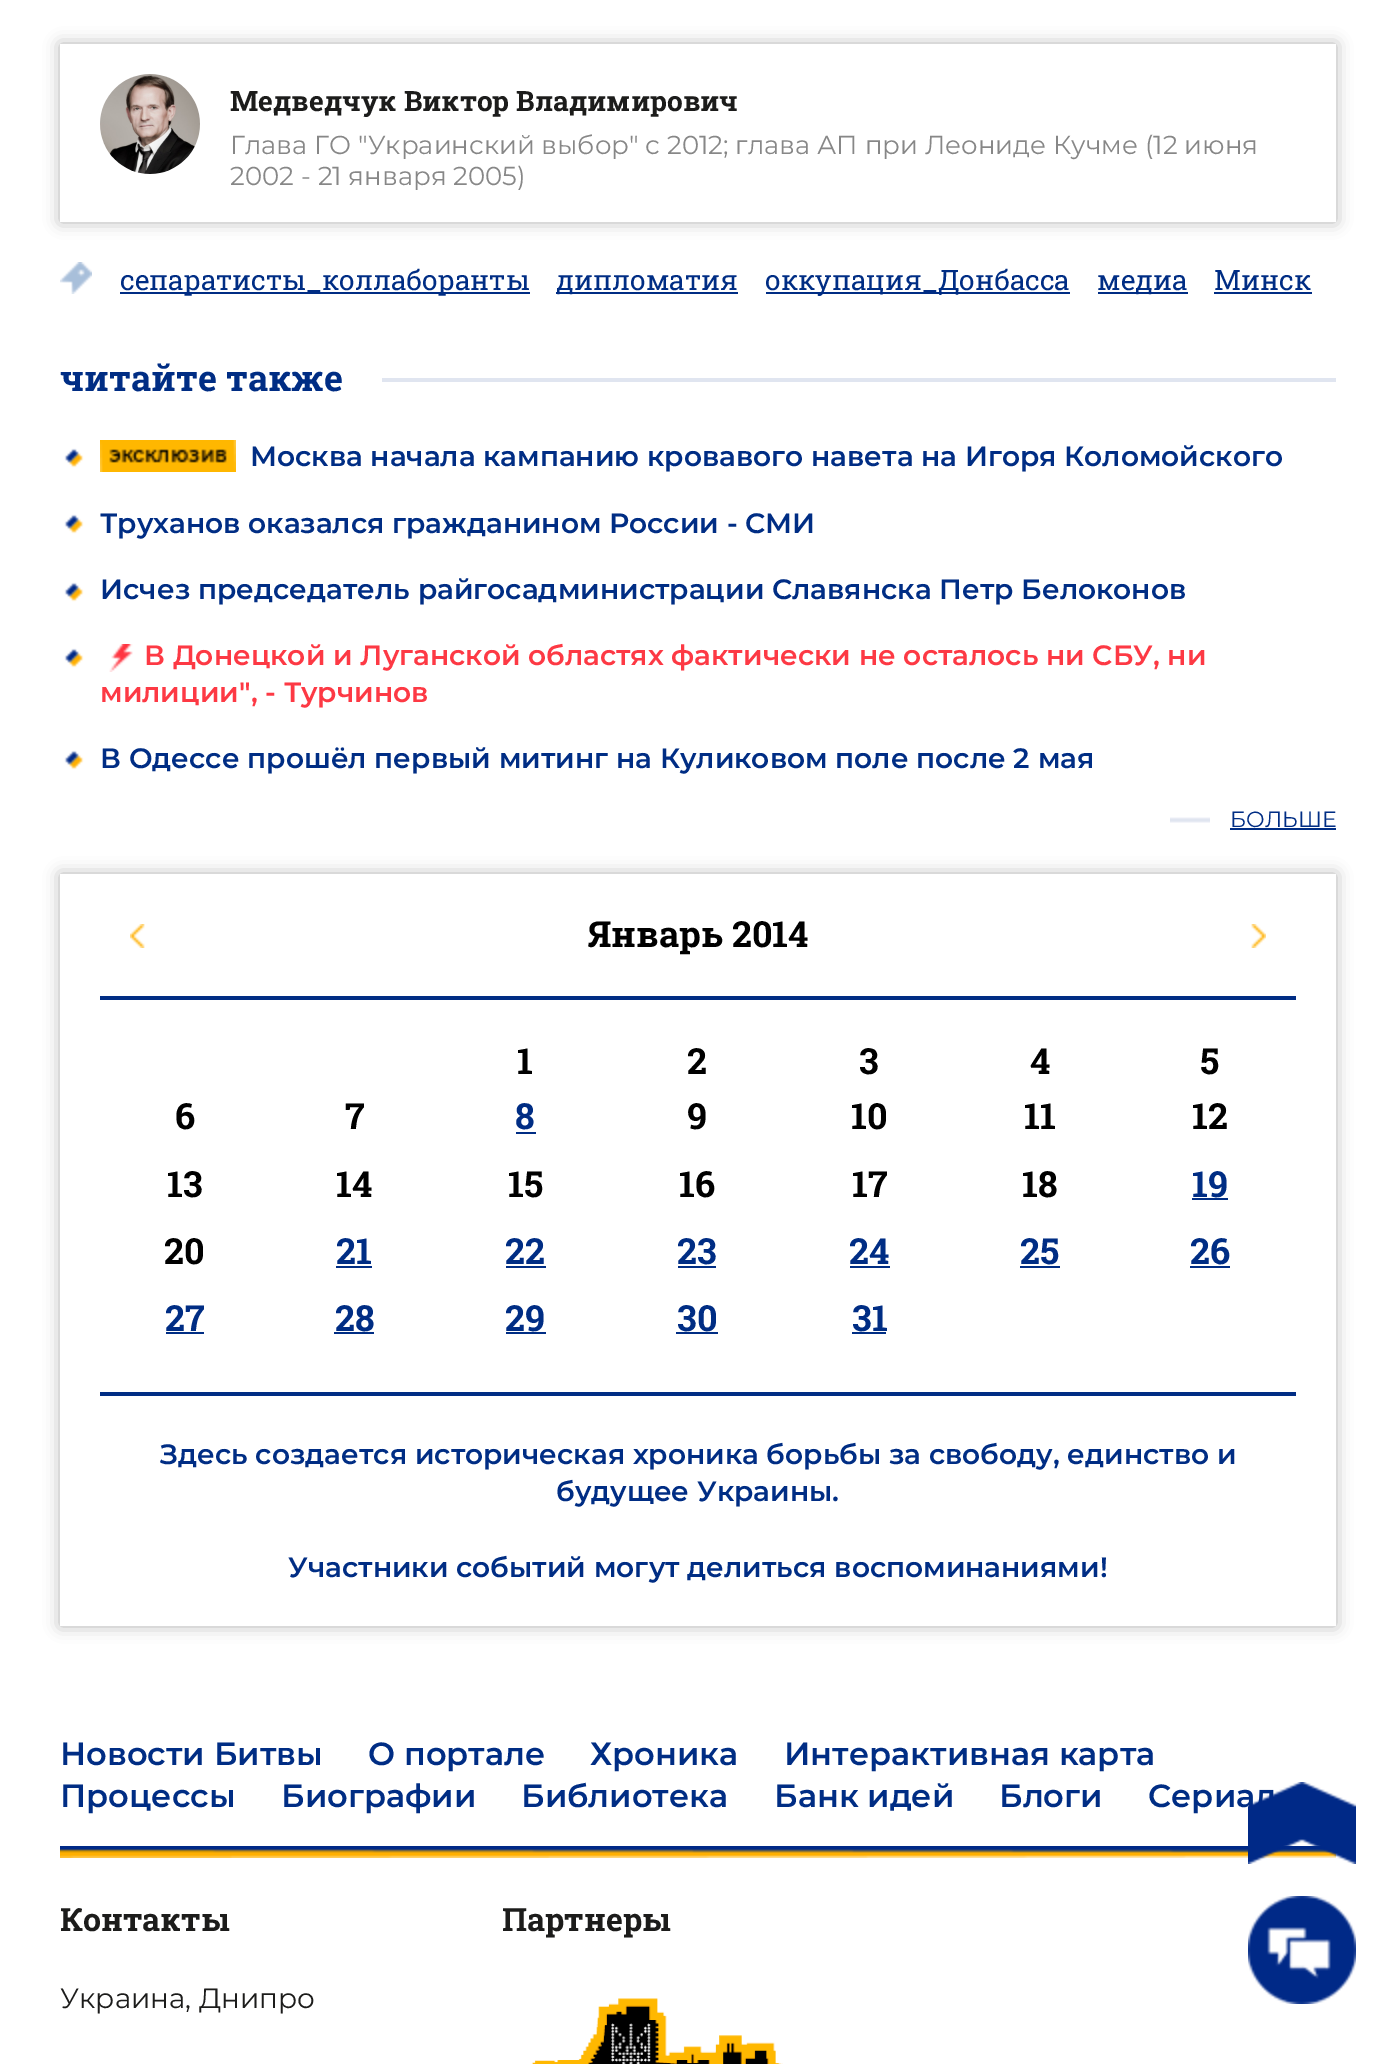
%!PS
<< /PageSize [1395 2064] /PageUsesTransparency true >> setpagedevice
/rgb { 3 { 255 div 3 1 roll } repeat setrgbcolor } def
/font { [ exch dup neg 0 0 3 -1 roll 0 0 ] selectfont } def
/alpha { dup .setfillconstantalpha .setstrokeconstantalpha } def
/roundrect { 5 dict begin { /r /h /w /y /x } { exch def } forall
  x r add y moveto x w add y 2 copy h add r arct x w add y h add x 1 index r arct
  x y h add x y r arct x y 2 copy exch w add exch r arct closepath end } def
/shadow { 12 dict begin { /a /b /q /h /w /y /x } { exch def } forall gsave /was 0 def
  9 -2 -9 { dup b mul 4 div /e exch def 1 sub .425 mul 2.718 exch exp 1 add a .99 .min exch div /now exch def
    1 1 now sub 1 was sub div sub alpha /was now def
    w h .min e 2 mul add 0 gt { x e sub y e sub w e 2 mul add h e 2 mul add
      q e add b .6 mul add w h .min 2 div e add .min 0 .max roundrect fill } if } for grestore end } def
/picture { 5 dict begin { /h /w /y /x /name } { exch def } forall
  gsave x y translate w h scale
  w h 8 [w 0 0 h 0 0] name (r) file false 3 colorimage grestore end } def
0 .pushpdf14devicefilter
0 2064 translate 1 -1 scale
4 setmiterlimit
255 255 255 rgb
0 0 1395 2064 rectfill
gsave
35 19 moveto 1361 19 lineto 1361 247 lineto 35 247 lineto closepath 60 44 moveto 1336 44 lineto 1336 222 lineto 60 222 lineto closepath eoclip newpath
0 0 0 rgb
60 44 1276 178 0 8 0.3 shadow
grestore
(img/1.rgb) 100 74 100 100 picture
(img/2.rgb) 60 262 32 32 picture
[
  [120 292 410 2 0 45 132]
  [556 292 182 2 0 45 132]
  [766 292 304 2 0 45 132]
  [1098 292 90 2 0 45 132]
  [1214 292 98 2 0 45 132]
  [382 378 954 4 224 229 240]
] { aload pop rgb rectfill } forall
(img/3.rgb) 64 448 20 20 picture
(img/4.rgb) 100 440 136 32 picture
(img/3.rgb) 64 514 20 20 picture
(img/3.rgb) 64 582 20 20 picture
(img/3.rgb) 64 648 20 20 picture
(img/5.rgb) 109 644 24 28 picture
(img/3.rgb) 64 750 20 20 picture
(img/6.rgb) 1170 817 40 6 picture
0 45 132 rgb
1230 828 106 2 rectfill
gsave
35 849 moveto 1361 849 lineto 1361 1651 lineto 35 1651 lineto closepath 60 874 moveto 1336 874 lineto 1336 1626 lineto 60 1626 lineto closepath eoclip newpath
0 0 0 rgb
60 874 1276 752 0 8 0.3 shadow
grestore
(img/7.rgb) 130 924 15 24 picture
100 996 1196 4 rectfill
(img/8.rgb) 1251 924 15 24 picture
[
  [516 1132 20 2 0 45 132]
  [1192 1198 36 2 0 45 132]
  [336 1266 36 2 0 45 132]
  [506 1266 40 2 0 45 132]
  [678 1266 38 2 0 45 132]
  [850 1266 40 2 0 45 132]
  [1020 1266 40 2 0 45 132]
  [1190 1266 40 2 0 45 132]
  [166 1332 38 2 0 45 132]
  [334 1332 40 2 0 45 132]
  [506 1332 40 2 0 45 132]
  [676 1332 42 2 0 45 132]
  [852 1332 34 2 0 45 132]
  [100 1392 1196 4 0 45 132]
] { aload pop rgb rectfill } forall
(img/9.rgb) 60 1846 1276 12 picture
(img/10.rgb) 531 1998 252 66 picture
(img/12.rgb) 1248 1896 108 108 picture
/RobotoSlab-Bold 28 font
28 28 27 rgb
230 111 moveto (Медведчук Виктор Владимирович) show
/Montserrat-Regular 26 font
135 135 135 rgb
230 154 moveto (Глава ГО "Украинский выбор" с 2012; глава АП при Леониде Кучме \(12 июня) show
230 185 moveto (2002 - 21 января 2005\)) show
/RobotoSlab-Regular 28 font
0 45 132 rgb
[
  [(сепаратисты_коллаборанты) 120 290]
  [(дипломатия) 556 290]
  [(оккупация_Донбасса) 765 290]
  [(медиа) 1097 290]
  [(Минск) 1214 290]
] { aload pop moveto show } forall
/RobotoSlab-Bold 36 font
60 391 moveto (читайте также) show
/Montserrat-SemiBold 28 font
[
  [(Москва начала кампанию кровавого навета на Игоря Коломойского) 250 466]
  [(Труханов оказался гражданином России - СМИ) 100 533]
  [(Исчез председатель райгосадминистрации Славянска Петр Белоконов) 100 599]
] { aload pop moveto show } forall
253 57 68 rgb
144 665 moveto (В Донецкой и Луганской областях фактически не осталось ни СБУ, ни) show
100 702 moveto (милиции", - Турчинов) show
0 45 132 rgb
100 768 moveto (В Одессе прошёл первый митинг на Куликовом поле после 2 мая) show
/Montserrat-Regular 22 font
1230 827 moveto (БОЛЬШЕ) show
/RobotoSlab-Bold 36 font
0 0 0 rgb
[
  [(Январь 2014) 587 947]
  [(1) 517 1074]
  [(2) 687 1074]
  [(3) 859 1074]
  [(4) 1030 1074]
  [(5) 1200 1074]
  [(6) 175 1129]
  [(7) 345 1129]
] { aload pop moveto show } forall
0 45 132 rgb
515 1129 moveto (8) show
0 0 0 rgb
[
  [(9) 687 1129]
  [(10) 851 1129]
  [(11) 1024 1129]
  [(12) 1192 1129]
  [(13) 167 1197]
  [(14) 336 1197]
  [(15) 508 1197]
  [(16) 679 1197]
  [(17) 852 1197]
  [(18) 1022 1197]
] { aload pop moveto show } forall
0 45 132 rgb
1192 1197 moveto (19) show
0 0 0 rgb
164 1264 moveto (20) show
0 45 132 rgb
[
  [(21) 336 1264]
  [(22) 505 1264]
  [(23) 677 1264]
  [(24) 849 1264]
  [(25) 1020 1264]
  [(26) 1190 1264]
  [(27) 165 1331]
  [(28) 335 1331]
  [(29) 505 1331]
  [(30) 677 1331]
  [(31) 852 1331]
] { aload pop moveto show } forall
/Montserrat-SemiBold 28 font
[
  [(Здесь создается историческая хроника борьбы за свободу, единство и) 160 1464]
  [(будущее Украины.) 556 1501]
  [(Участники событий могут делиться воспоминаниями!) 288 1577]
] { aload pop moveto show } forall
/Montserrat-SemiBold 32 font
[
  [(Новости Битвы) 60 1765]
  [(О портале) 368 1765]
  [(Хроника) 590 1765]
  [(Интерактивная карта) 784 1765]
  [(Процессы) 60 1807]
  [(Биографии) 281 1807]
  [(Библиотека) 521 1807]
  [(Банк идей) 774 1807]
  [(Блоги) 999 1807]
  [(Сериал) 1148 1807]
] { aload pop moveto show } forall
/RobotoSlab-Bold 32 font
28 28 27 rgb
60 1931 moveto (Контакты) show
/Montserrat-Regular 28 font
60 2008 moveto (Украина, Днипро) show
/RobotoSlab-Bold 32 font
502 1931 moveto (Партнеры) show
(img/11.rgb) 1248 1782 108 82 picture
.poppdf14devicefilter showpage
